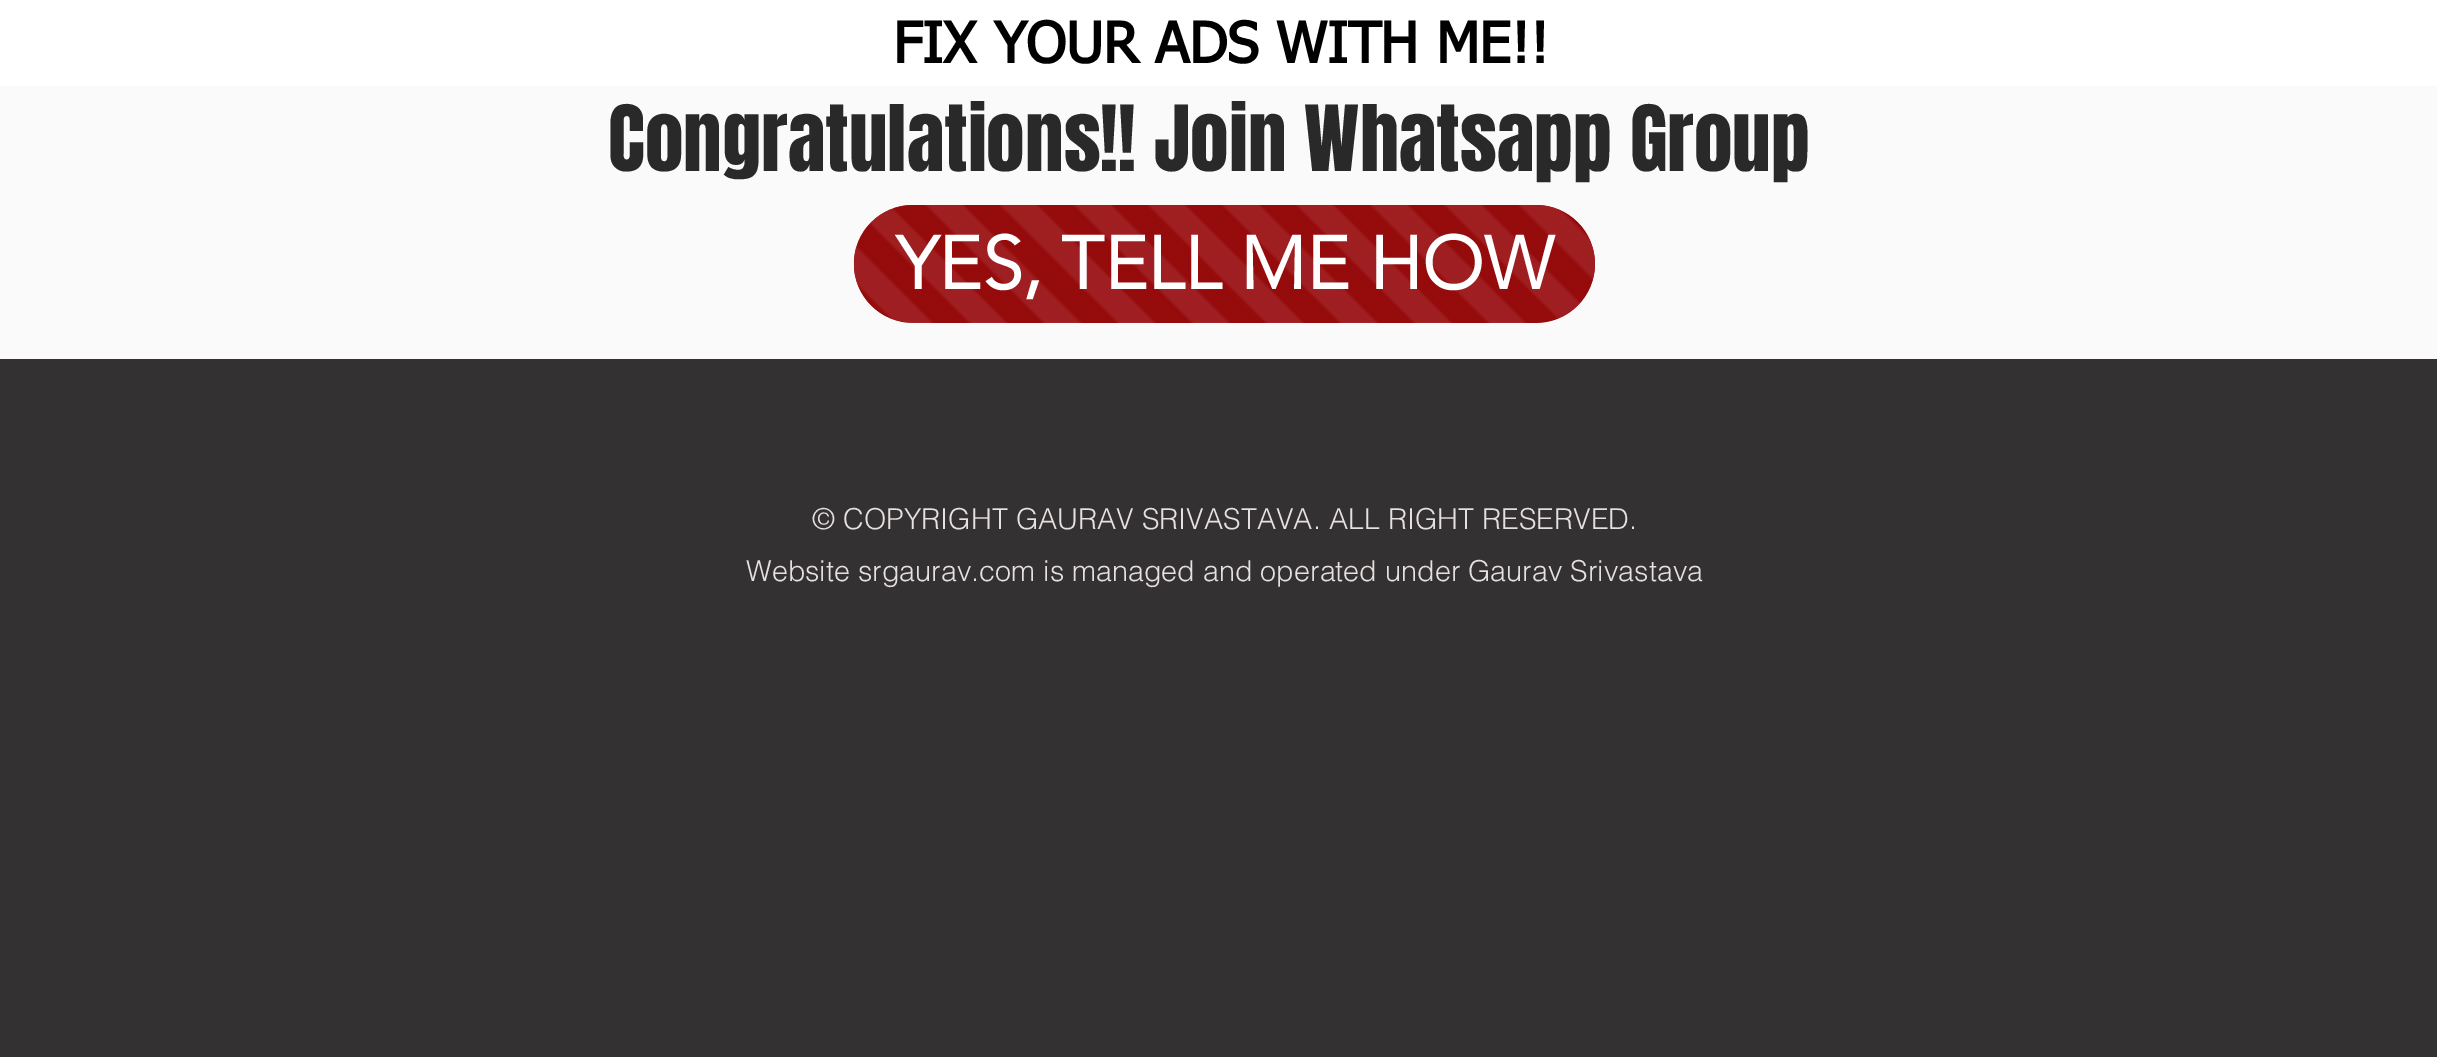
%!PS
<< /PageSize [2437 1057] >> setpagedevice
/rgb { 3 { 255 div 3 1 roll } repeat setrgbcolor } def
/font { [ exch dup neg 0 0 3 -1 roll 0 0 ] selectfont } def
/roundrect { 5 dict begin { /r /h /w /y /x } { exch def } forall
  x r add y moveto x w add y 2 copy h add r arct x w add y h add x 1 index r arct
  x y h add x y r arct x y 2 copy exch w add exch r arct closepath end } def
/picture { 5 dict begin { /h /w /y /x /name } { exch def } forall
  gsave x y translate w h scale
  w h 8 [w 0 0 h 0 0] name (r) file false 3 colorimage grestore end } def
0 1057 translate 1 -1 scale
4 setmiterlimit
51 49 49 rgb
0 0 2437 1057 rectfill
255 255 255 rgb
0 0 2437 86 rectfill
250 250 250 rgb
0 86 2437 273 rectfill
149 11 11 rgb
854 205 741 118 59 roundrect fill
(img/1.rgb) 853 205 742 118 picture
/tahoma-Bold 56.25 font
0 0 0 rgb
893 63 moveto (FIX YOUR ADS WITH ME!!) show
/Anton-Regular 77.5 font
41 41 41 rgb
608 171 moveto (Congratulations!! Join Whatsapp Group) show
/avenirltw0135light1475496-Bold 73.75 font
255 255 255 rgb
896 289 moveto (YES, TELL ME HOW) show
/helvetica-Light 28.75 font
230 224 224 rgb
812 529 moveto (© COPYRIGHT GAURAV SRIVASTAVA. ALL RIGHT RESERVED.) show
746 581 moveto (Website srgaurav.com is managed and operated under Gaurav Srivastava) show
showpage
